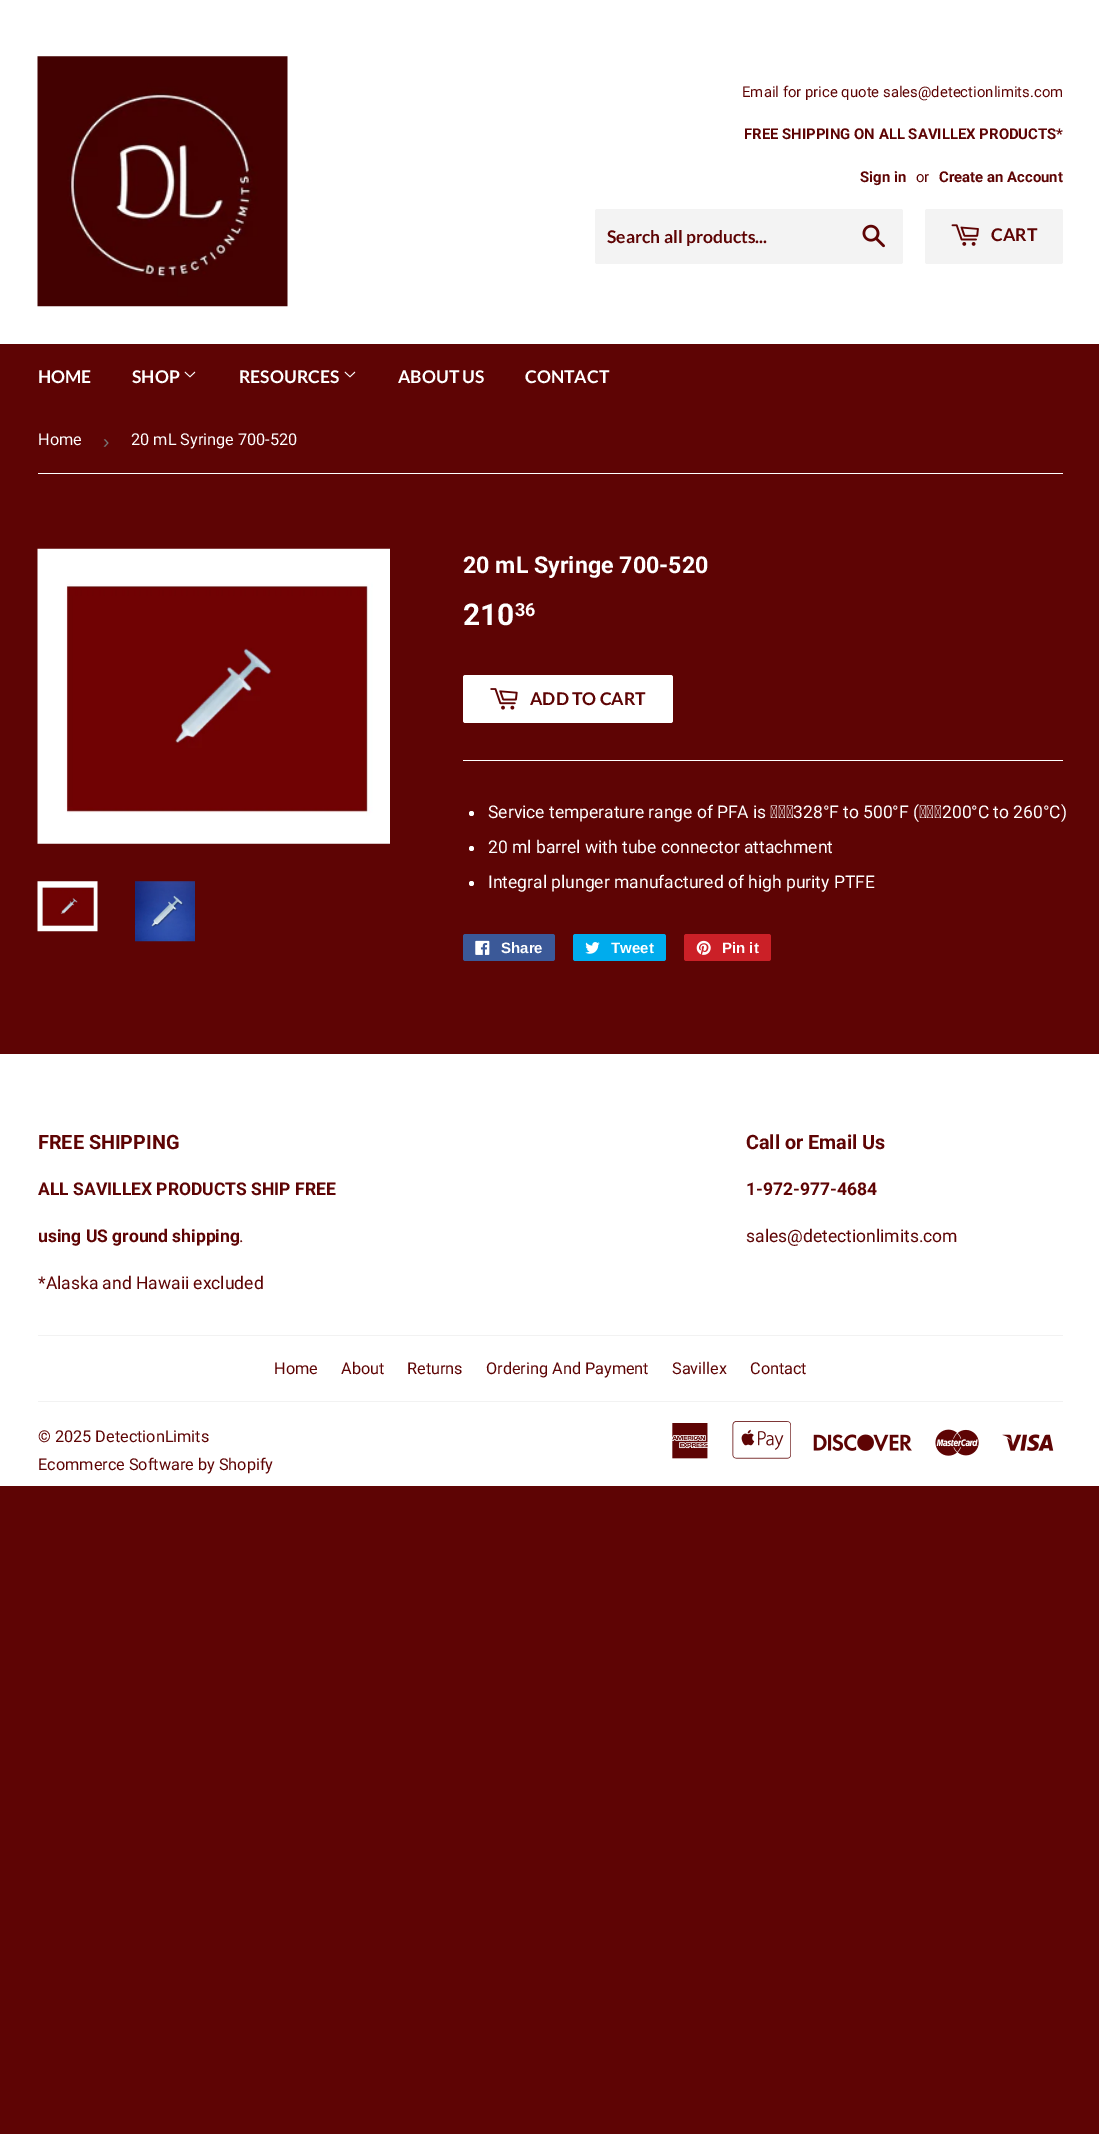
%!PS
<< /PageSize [1099 2134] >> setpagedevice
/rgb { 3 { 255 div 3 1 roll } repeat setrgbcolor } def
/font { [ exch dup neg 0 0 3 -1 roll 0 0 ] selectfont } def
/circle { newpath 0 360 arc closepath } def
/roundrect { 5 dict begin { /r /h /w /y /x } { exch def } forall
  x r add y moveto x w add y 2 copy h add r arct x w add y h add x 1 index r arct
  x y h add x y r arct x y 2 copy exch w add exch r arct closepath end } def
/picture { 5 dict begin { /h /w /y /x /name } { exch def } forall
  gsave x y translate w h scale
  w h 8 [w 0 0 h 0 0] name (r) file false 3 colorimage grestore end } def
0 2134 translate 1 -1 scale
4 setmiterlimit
94 4 4 rgb
0 0 1099 2134 rectfill
255 255 255 rgb
0 0 1099 344 rectfill
(img/1.rgb) 37 56 251 251 picture
243 243 243 rgb
595 209 308 55 2.5 roundrect fill
(img/2.rgb) 862 224 23 24 picture
925 209 138 55 2.5 roundrect fill
(img/3.rgb) 951 224 28 22 picture
(img/4.rgb) 184 371 12 7 picture
(img/4.rgb) 344 371 12 7 picture
255 255 255 rgb
38 473 1025 1 rectfill
(img/5.rgb) 37 548 353 296 picture
(img/6.rgb) 37 881 61 51 picture
(img/7.rgb) 135 881 60 61 picture
463 675 210 48 2.5 roundrect fill
(img/8.rgb) 490 688 28 22 picture
463 760 600 1 rectfill
471.5 813.5 2.5 circle fill
471.5 848.5 2.5 circle fill
471.5 883.5 2.5 circle fill
59 89 152 rgb
463 934 92 27 2.5 roundrect fill
(img/9.rgb) 475 940 15 15 picture
0 172 237 rgb
573 934 93 27 2.5 roundrect fill
(img/10.rgb) 585 942 15 12 picture
203 32 39 rgb
684 934 87 27 2.5 roundrect fill
(img/11.rgb) 696 940 15 15 picture
[
  [0 1054 1099 432 255 255 255]
  [38 1335 1025 1 242 242 242]
  [38 1401 1025 1 242 242 242]
] { aload pop rgb rectfill } forall
(img/12.rgb) 672 1423 36 36 picture
(img/13.rgb) 732 1421 59 38 picture
(img/14.rgb) 813 1434 99 17 picture
(img/15.rgb) 935 1429 44 27 picture
(img/16.rgb) 1002 1434 52 17 picture
/Roboto-Regular 14.9 font
94 4 4 rgb
742 97 moveto (Email for price quote sales@detectionlimits.com) show
/Roboto-Bold 14.9 font
744 139 moveto (FREE SHIPPING ON ALL SAVILLEX PRODUCTS*) show
860 182 moveto (Sign in) show
/Roboto-Regular 14.9 font
916 182 moveto (or) show
/Roboto-Bold 14.9 font
939 182 moveto (Create an Account) show
/Lato-Bold 17.5 font
607 243 moveto (Search all products...) show
991 241 moveto (CART) show
255 255 255 rgb
[
  [(HOME) 38 383]
  [(SHOP) 132 383]
  [(RESOURCES) 239 383]
  [(ABOUT US) 398 383]
  [(CONTACT) 525 383]
] { aload pop moveto show } forall
/Roboto-Regular 16.25 font
38 445 moveto (Home) show
/LiberationSans-Regular 19 font
118 118 118 rgb
103 448 moveto (›) show
/Roboto-Regular 16.25 font
255 255 255 rgb
131 445 moveto (20 mL Syringe 700-520) show
/Roboto-Bold 23.25 font
463 573 moveto (20 mL Syringe 700-520) show
/Roboto-Bold 30 font
463 625 moveto (210) show
/Roboto-Bold 18 font
515 616 moveto (36) show
/Lato-Bold 17.5 font
94 4 4 rgb
530 705 moveto (ADD TO CART) show
/Roboto-Regular 17.5 font
255 255 255 rgb
488 818 moveto -0.3 0 32 (Service temperature range of PFA is ‑328°F to 500°F \(‑200°C to 260°C\)) widthshow
488 853 moveto (20 ml barrel with tube connector attachment) show
488 888 moveto (Integral plunger manufactured of high purity PTFE) show
/LiberationSans-Bold 15 font
[
  [(Share) 501 953]
  [(Tweet) 611 953]
  [(Pin it) 722 953]
] { aload pop moveto show } forall
/Roboto-Bold 19.75 font
94 4 4 rgb
38 1149 moveto (FREE SHIPPING) show
/Roboto-Bold 17.5 font
38 1195 moveto (ALL SAVILLEX PRODUCTS SHIP FREE) show
38 1242 moveto (using US ground shipping) show
/Roboto-Regular 17.5 font
239 1242 moveto (.) show
38 1289 moveto (*Alaska and Hawaii excluded) show
/Roboto-Bold 19.75 font
746 1149 moveto (Call or Email Us) show
/Roboto-Bold 17.5 font
746 1195 moveto (1-972-977-4684) show
/Roboto-Regular 17.5 font
746 1242 moveto (sales@detectionlimits.com) show
/Roboto-Regular 16.25 font
[
  [(Home) 274 1374]
  [(About) 341 1374]
  [(Returns) 407 1374]
  [(Ordering And Payment) 486 1374]
  [(Savillex) 672 1374]
  [(Contact) 750 1374]
  [(© 2025 DetectionLimits) 38 1442]
  [(Ecommerce Software by Shopify) 38 1470]
] { aload pop moveto show } forall
showpage
